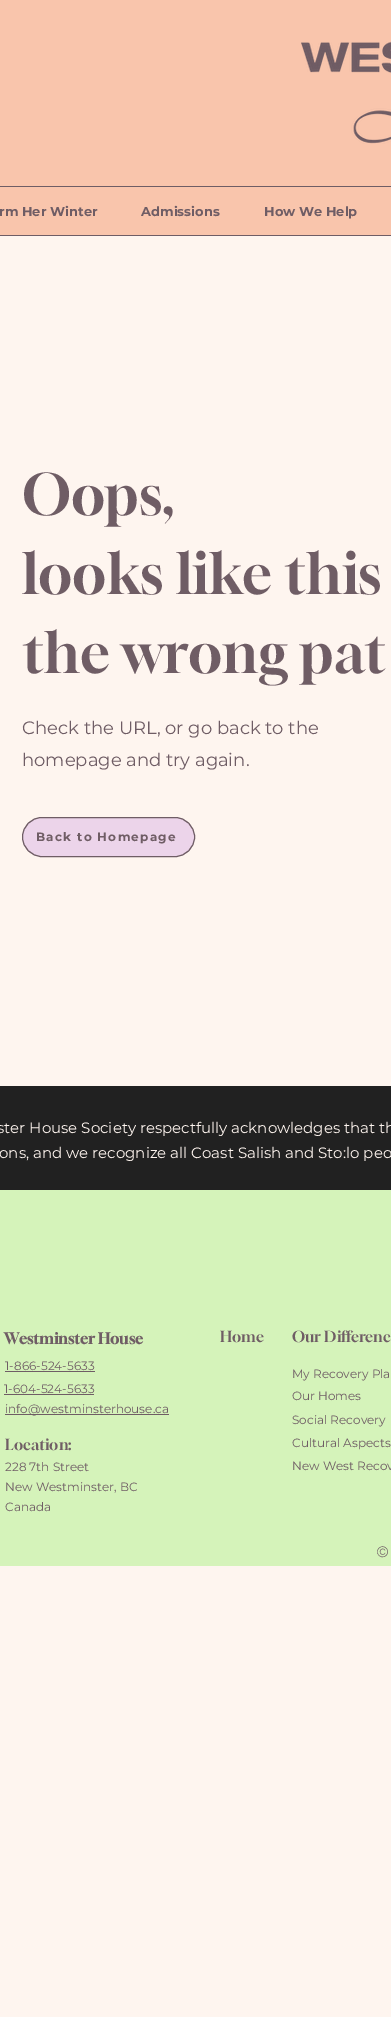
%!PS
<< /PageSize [391 2017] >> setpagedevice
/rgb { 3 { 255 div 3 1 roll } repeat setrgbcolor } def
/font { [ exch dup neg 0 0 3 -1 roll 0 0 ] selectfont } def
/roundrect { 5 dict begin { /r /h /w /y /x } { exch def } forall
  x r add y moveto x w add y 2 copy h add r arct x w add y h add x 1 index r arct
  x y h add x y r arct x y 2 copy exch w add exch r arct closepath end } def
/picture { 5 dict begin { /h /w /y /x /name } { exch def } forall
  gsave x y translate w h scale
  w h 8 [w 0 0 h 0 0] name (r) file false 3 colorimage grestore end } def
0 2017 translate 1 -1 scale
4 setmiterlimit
254 245 239 rgb
0 0 391 2017 rectfill
249 197 172 rgb
0 0 391 235 rectfill
(img/1.rgb) 301 41 90 103 picture
111 93 101 rgb
0 186 391 1 rectfill
0 235 391 1 rectfill
236 212 234 rgb
22.5 817.5 172 39 19.5 roundrect gsave fill grestore
111 93 101 rgb
stroke
[
  [0 1086 391 104 33 33 33]
  [0 1190 391 376 213 243 186]
  [5 1371 90 1 111 93 101]
  [4 1394 90 1 111 93 101]
  [5 1414 164 1 111 93 101]
] { aload pop rgb rectfill } forall
/Montserrat-Bold 13 font
[
  [(rm Her Winter) -1 216]
  [(Admissions) 141 216]
  [(How We Help) 264 216]
] { aload pop moveto show } forall
/Gloock-Regular 56 font
[
  [(Oops,) 22 515]
  [(looks like this) 22 594]
  [(the wrong pat) 22 673]
] { aload pop moveto show } forall
/Montserrat-Regular 18 font
22 734 moveto (Check the URL, or go back to the) show
22 766 moveto (homepage and try again.) show
/Montserrat-Bold 12 font
36 841 moveto 1.25 0 (Back to Homepage) ashow
/Montserrat-Regular 15 font
254 245 239 rgb
-3 1133 moveto (ster House Society respectfully acknowledges that th) show
-1 1158 moveto (ons, and we recognize all Coast Salish and Sto:lo peo) show
/Gloock-Bold 15 font
111 93 101 rgb
4 1344 moveto (Westminster House) show
/Gloock-Regular 15 font
220 1342 moveto (Home) show
292 1342 moveto (Our Differenc) show
/Montserrat-Regular 12 font
[
  [(1-866-524-5633) 5 1370]
  [(My Recovery Pla) 292 1378]
  [(1-604-524-5633) 4 1393]
  [(Our Homes) 292 1400]
  [(info@westminsterhouse.ca) 5 1413]
  [(Social Recovery) 292 1424]
] { aload pop moveto show } forall
/Gloock-Regular 15 font
5 1450 moveto (Location:) show
/Montserrat-Regular 12 font
[
  [(228 7th Street) 5 1471]
  [(New Westminster, BC) 5 1491]
  [(Canada) 5 1511]
  [(Cultural Aspects) 292 1447]
  [(New West Recov) 292 1470]
] { aload pop moveto show } forall
/futura-Light 14 font
377 1557 moveto (©) show
showpage
